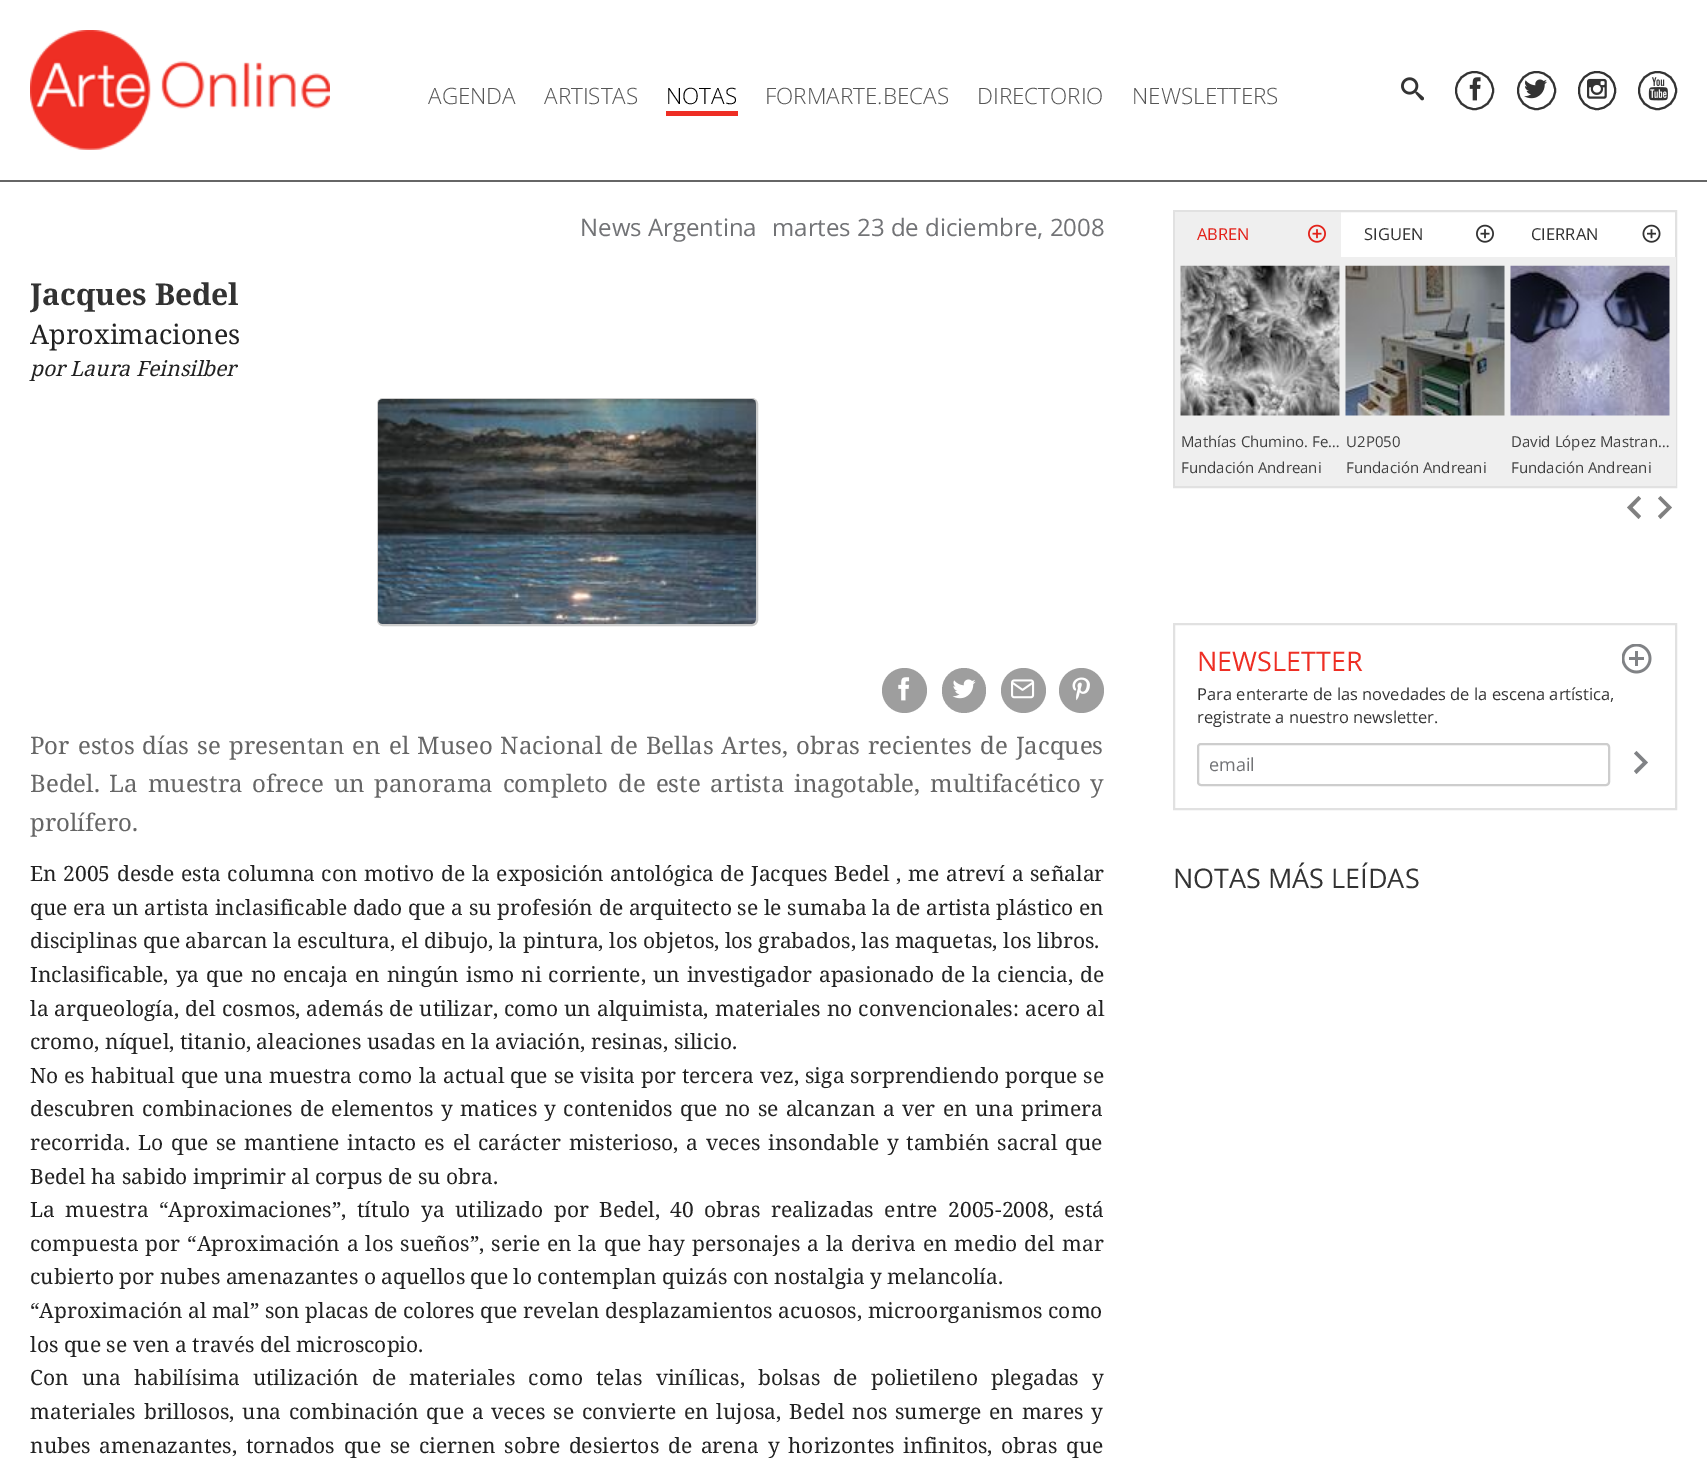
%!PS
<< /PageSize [1707 1478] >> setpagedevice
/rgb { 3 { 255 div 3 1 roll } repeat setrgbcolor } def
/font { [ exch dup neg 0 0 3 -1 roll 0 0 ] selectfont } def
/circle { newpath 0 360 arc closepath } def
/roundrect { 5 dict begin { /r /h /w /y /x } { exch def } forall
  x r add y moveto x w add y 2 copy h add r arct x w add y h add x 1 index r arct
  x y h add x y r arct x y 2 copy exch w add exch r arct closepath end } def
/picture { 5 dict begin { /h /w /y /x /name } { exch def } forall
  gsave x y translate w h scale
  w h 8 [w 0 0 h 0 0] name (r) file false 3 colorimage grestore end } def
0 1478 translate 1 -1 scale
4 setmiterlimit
255 255 255 rgb
0 0 1707 1478 rectfill
102 102 102 rgb
0 180 1707 2 rectfill
(img/1.rgb) 30 30 300 120 picture
238 46 36 rgb
666 111 72 5 rectfill
(img/2.rgb) 1401 77 23 24 picture
51 51 51 rgb
2 setlinewidth
1474.5 90.5 18.5 circle stroke
(img/3.rgb) 1469 77 12 24 picture
1536.5 90.5 18.5 circle stroke
(img/4.rgb) 1524 79 23 20 picture
1579 72 36 37 18 roundrect stroke
(img/5.rgb) 1587 78 20 21 picture
1657.5 90.5 18.5 circle stroke
(img/6.rgb) 1648 77 20 24 picture
204 204 204 rgb
378 399 379 226 5 roundrect stroke
(img/7.rgb) 378 399 378 225 picture
158 158 158 rgb
904.5 690.5 22.5 circle fill
(img/8.rgb) 898 677 12 24 picture
942 668 44 45 22 roundrect fill
(img/9.rgb) 952 679 24 20 picture
1023.5 690.5 22.5 circle fill
(img/10.rgb) 1011 679 24 20 picture
1081.5 690.5 22.5 circle fill
(img/11.rgb) 1072 677 18 24 picture
225 225 225 rgb
1174 211 502 276 rectstroke
239 239 239 rgb
1175 212 166 45 rectfill
(img/12.rgb) 1308 224 18 19 picture
(img/13.rgb) 1476 224 18 19 picture
(img/14.rgb) 1642 224 19 19 picture
1175 257 501 229 rectfill
(img/15.rgb) 1180 265 160 151 picture
(img/16.rgb) 1345 265 160 151 picture
(img/17.rgb) 1510 265 160 151 picture
128 128 128 rgb
1641 498.5 moveto 1632.5 507.5 lineto 1641 516 lineto 1638.5 519 lineto 1627 507.5 lineto 1638.5 496 lineto closepath 1660.5 496 moveto 1672 507.5 lineto 1660.5 519 lineto 1658 516 lineto 1667 507.5 lineto 1658 498.5 lineto closepath fill
225 225 225 rgb
1174 624 502 185 rectstroke
(img/18.rgb) 1622 644 30 30 picture
205 205 205 rgb
1198 744 411 41 3 roundrect stroke
128 130 133 rgb
1636.5 751 moveto 1648 762.5 lineto 1636.5 774 lineto 1634 771 lineto 1643 762.5 lineto 1634 753.5 lineto closepath fill
/OpenSans-Light 22.5 font
85 85 85 rgb
428 104 moveto (AGENDA) show
544 104 moveto (ARTISTAS) show
0 0 0 rgb
666 104 moveto (NOTAS) show
85 85 85 rgb
[
  [(FORMARTE.BECAS) 765 104]
  [(DIRECTORIO) 977 104]
  [(NEWSLETTERS) 1132 104]
] { aload pop moveto show } forall
/OpenSans-Regular 24 font
114 115 118 rgb
580 236 moveto (News Argentina) show
772 236 moveto (martes 23 de diciembre, 2008) show
gsave
30 273 1074 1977 rectclip
/NotoSerif-Bold 30 font
51 51 51 rgb
30 305 moveto (Jacques Bedel) show
grestore
/NotoSerif-Regular 27 font
34 34 34 rgb
30 344 moveto (Aproximaciones) show
/NotoSerif-Italic 21 font
30 376 moveto (por Laura Feinsilber) show
/NotoSerif-Regular 24 font
102 102 102 rgb
30 754 moveto 1.8 0 32 (Por estos días se presentan en el Museo Nacional de Bellas Artes, obras recientes de Jacques) widthshow
30 792 moveto 3.6 0 32 (Bedel. La muestra ofrece un panorama completo de este artista inagotable, multifacético y) widthshow
30 831 moveto (prolífero.) show
/NotoSerif-Regular 21 font
34 34 34 rgb
30 881 moveto 1.1 0 32 (En 2005 desde esta columna con motivo de la exposición antológica de Jacques Bedel , me atreví a señalar) widthshow
30 915 moveto 0.25 0 32 (que era un artista inclasificable dado que a su profesión de arquitecto se le sumaba la de artista plástico en) widthshow
30 948 moveto (disciplinas que abarcan la escultura, el dibujo, la pintura, los objetos, los grabados, las maquetas, los libros.) show
30 982 moveto 1.5 0 32 (Inclasificable, ya que no encaja en ningún ismo ni corriente, un investigador apasionado de la ciencia, de) widthshow
30 1016 moveto 0.5 0 32 (la arqueología, del cosmos, además de utilizar, como un alquimista, materiales no convencionales: acero al) widthshow
30 1049 moveto (cromo, níquel, titanio, aleaciones usadas en la aviación, resinas, silicio.) show
30 1083 moveto 0.6 0 32 (No es habitual que una muestra como la actual que se visita por tercera vez, siga sorprendiendo porque se) widthshow
30 1116 moveto 1.8 0 32 (descubren combinaciones de elementos y matices y contenidos que no se alcanzan a ver en una primera) widthshow
30 1150 moveto 2.25 0 32 (recorrida. Lo que se mantiene intacto es el carácter misterioso, a veces insondable y también sacral que) widthshow
30 1184 moveto (Bedel ha sabido imprimir al corpus de su obra.) show
30 1217 moveto 5 0 32 (La muestra “Aproximaciones”, título ya utilizado por Bedel, 40 obras realizadas entre 2005-2008, está) widthshow
30 1251 moveto 1.5 0 32 (compuesta por “Aproximación a los sueños”, serie en la que hay personajes a la deriva en medio del mar) widthshow
[
  [(cubierto por nubes amenazantes o aquellos que lo contemplan quizás con nostalgia y melancolía.) 30 1284]
  [(“Aproximación al mal” son placas de colores que revelan desplazamientos acuosos, microorganismos como) 30 1318]
  [(los que se ven a través del microscopio.) 30 1352]
] { aload pop moveto show } forall
30 1385 moveto 7.75 0 32 (Con una habilísima utilización de materiales como telas vinílicas, bolsas de polietileno plegadas y) widthshow
30 1419 moveto 2.25 0 32 (materiales brillosos, una combinación que a veces se convierte en lujosa, Bedel nos sumerge en mares y) widthshow
30 1453 moveto 3.25 0 32 (nubes amenazantes, tornados que se ciernen sobre desiertos de arena y horizontes infinitos, obras que) widthshow
/OpenSans-Regular 16.5 font
227 33 25 rgb
1197 240 moveto (ABREN) show
51 51 51 rgb
1364 240 moveto (SIGUEN) show
1531 240 moveto (CIERRAN) show
/OpenSans-Regular 15 font
64 64 64 rgb
[
  [(Mathías Chumino. Fe…) 1181 447]
  [(Fundación Andreani) 1181 473]
  [(U2P050) 1346 447]
  [(Fundación Andreani) 1346 473]
  [(David López Mastran…) 1511 447]
  [(Fundación Andreani) 1511 473]
] { aload pop moveto show } forall
/OpenSans-Regular 27 font
238 46 36 rgb
1197 671 moveto (NEWSLETTER) show
/OpenSans-Regular 16.5 font
51 51 51 rgb
1197 700 moveto (Para enterarte de las novedades de la escena artística,) show
1197 723 moveto (registrate a nuestro newsletter.) show
/OpenSans-Regular 18 font
114 115 118 rgb
1209 771 moveto (email) show
/OpenSans-Regular 27 font
51 51 51 rgb
1173 888 moveto (NOTAS MÁS LEÍDAS) show
showpage
